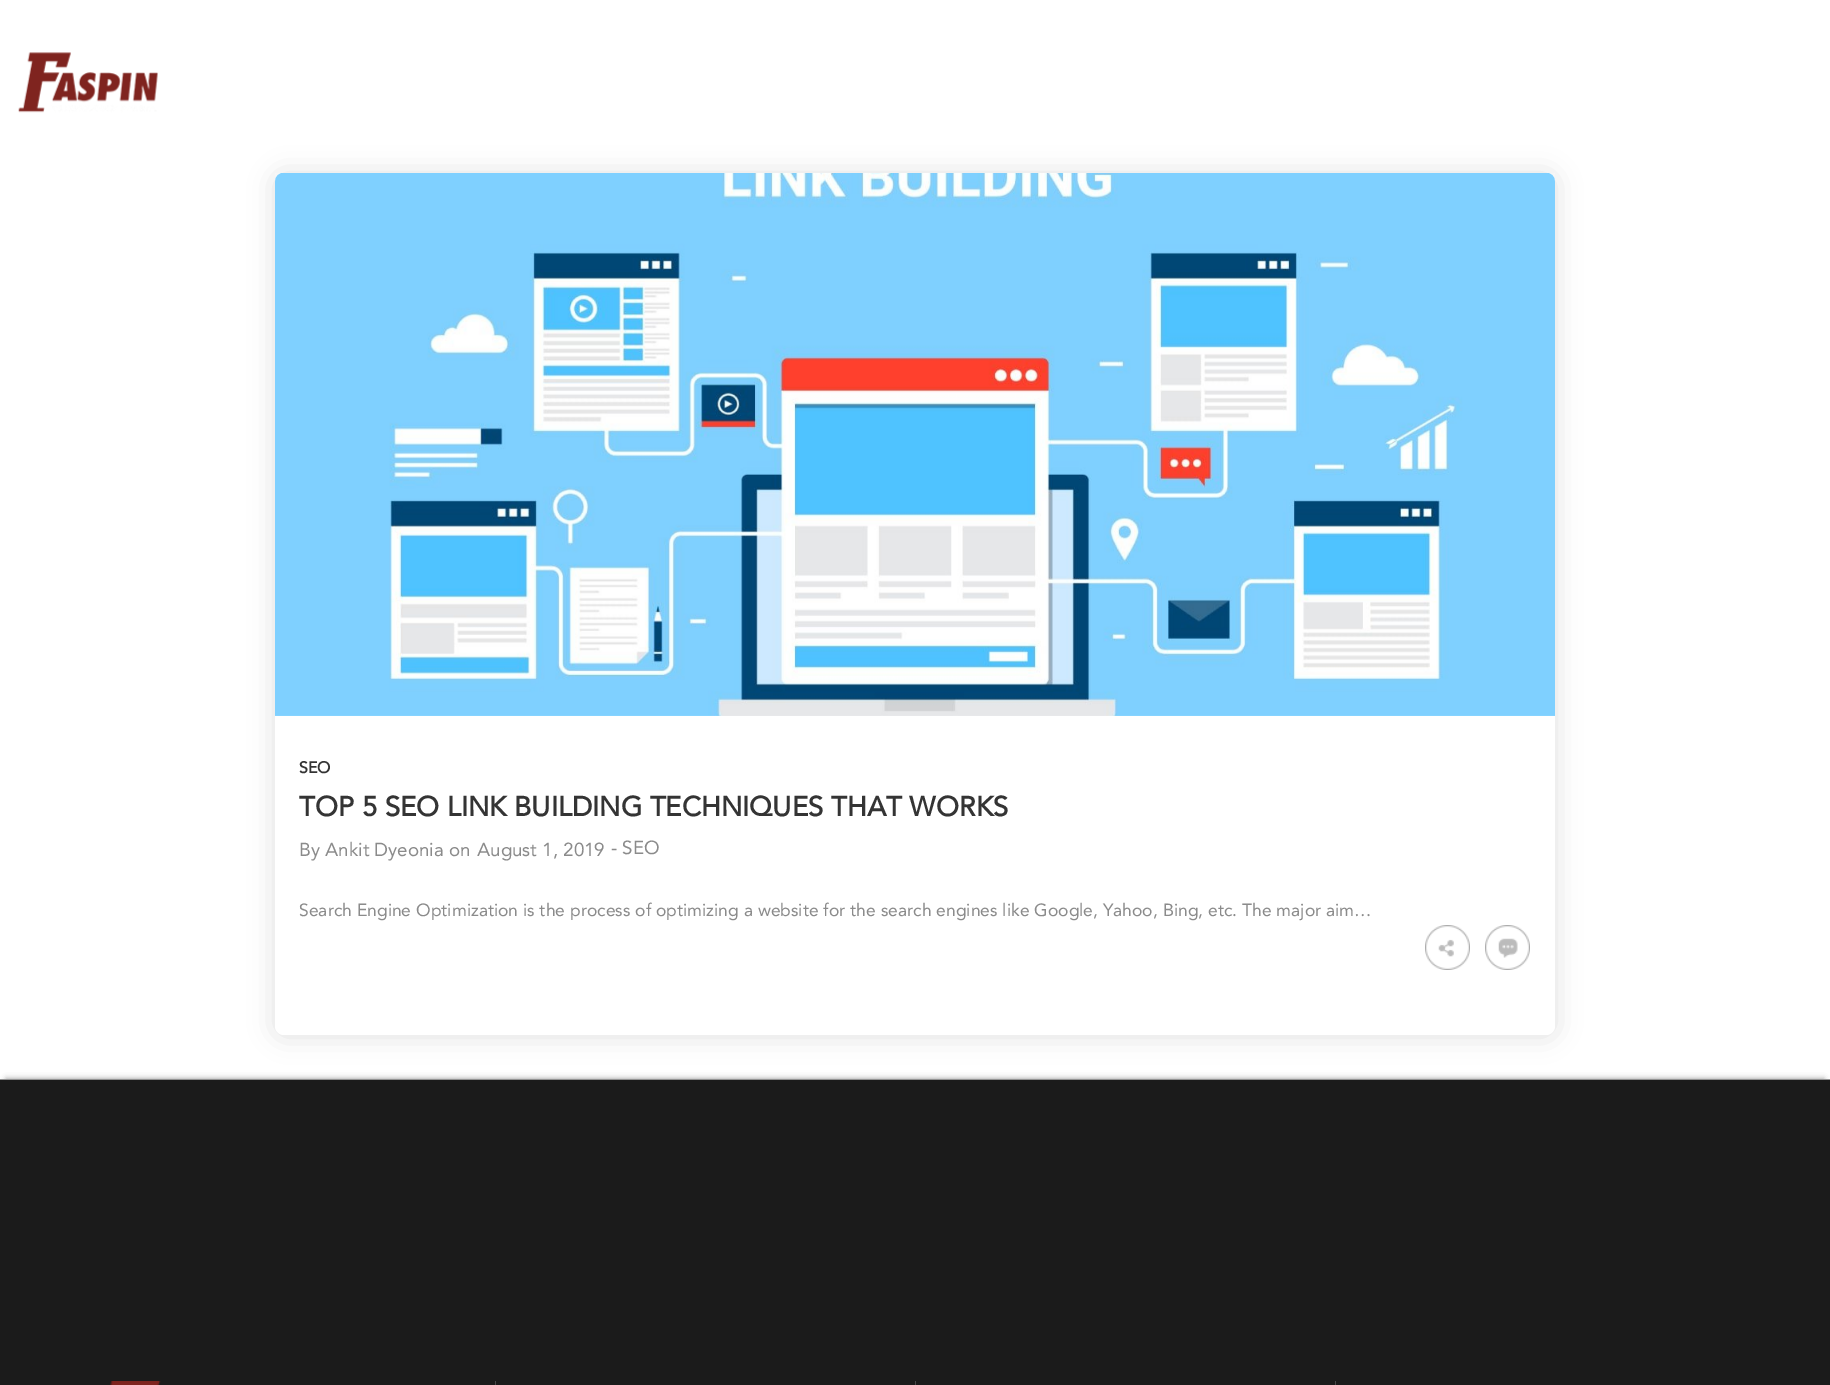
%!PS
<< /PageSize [1830 1385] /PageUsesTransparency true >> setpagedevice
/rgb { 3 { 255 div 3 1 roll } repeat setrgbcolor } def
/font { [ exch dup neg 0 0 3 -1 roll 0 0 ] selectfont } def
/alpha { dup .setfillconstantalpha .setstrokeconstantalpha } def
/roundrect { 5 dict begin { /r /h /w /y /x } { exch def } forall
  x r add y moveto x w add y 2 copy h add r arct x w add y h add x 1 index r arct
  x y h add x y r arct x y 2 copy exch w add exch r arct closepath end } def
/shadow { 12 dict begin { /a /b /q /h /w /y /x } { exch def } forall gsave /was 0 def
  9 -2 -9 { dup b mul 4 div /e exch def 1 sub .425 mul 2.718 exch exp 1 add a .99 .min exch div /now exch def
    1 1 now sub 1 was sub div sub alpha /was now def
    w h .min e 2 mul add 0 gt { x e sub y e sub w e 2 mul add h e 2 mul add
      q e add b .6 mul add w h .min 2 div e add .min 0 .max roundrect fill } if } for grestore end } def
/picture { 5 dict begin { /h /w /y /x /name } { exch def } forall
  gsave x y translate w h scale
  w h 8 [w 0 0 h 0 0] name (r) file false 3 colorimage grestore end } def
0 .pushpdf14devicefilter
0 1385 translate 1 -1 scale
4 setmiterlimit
255 255 255 rgb
0 0 1830 1385 rectfill
(img/1.rgb) 18 52 140 61 picture
0 0 0 rgb
275 174 1280 862 9 13 0.12 shadow
255 255 255 rgb
275 173 1280 862 9 roundrect fill
(img/2.rgb) 275 173 1280 543 picture
(img/3.rgb) 1425 925 45 45 picture
(img/4.rgb) 1485 925 45 45 picture
147 147 147 rgb
6 1079 1818 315 0 3 1 shadow
27 27 27 rgb
0 1080 1830 305 rectfill
147 147 147 rgb
0 1079 1830 1 rectfill
(img/5.rgb) 110 1381 51 4 picture
[
  [495 1381 1 4 73 73 73]
  [915 1381 1 4 73 73 73]
  [1335 1381 1 4 73 73 73]
] { aload pop rgb rectfill } forall
/Avenir-Bold 16 font
52 52 52 rgb
299 773 moveto (SEO) show
/Avenir-Bold 27.5 font
299 816 moveto (TOP 5 SEO LINK BUILDING TECHNIQUES THAT WORKS) show
/Avenir-Regular 18.75 font
139 139 139 rgb
[
  [(By Ankit Dyeonia on) 299 856]
  [(August 1, 2019) 477 856]
  [(- SEO) 611 854]
] { aload pop moveto show } forall
/Avenir-Regular 17.5 font
299 916 moveto (Search Engine Optimization is the process of optimizing a website for the search engines like Google, Yahoo, Bing, etc. The major aim…) show
.poppdf14devicefilter showpage
